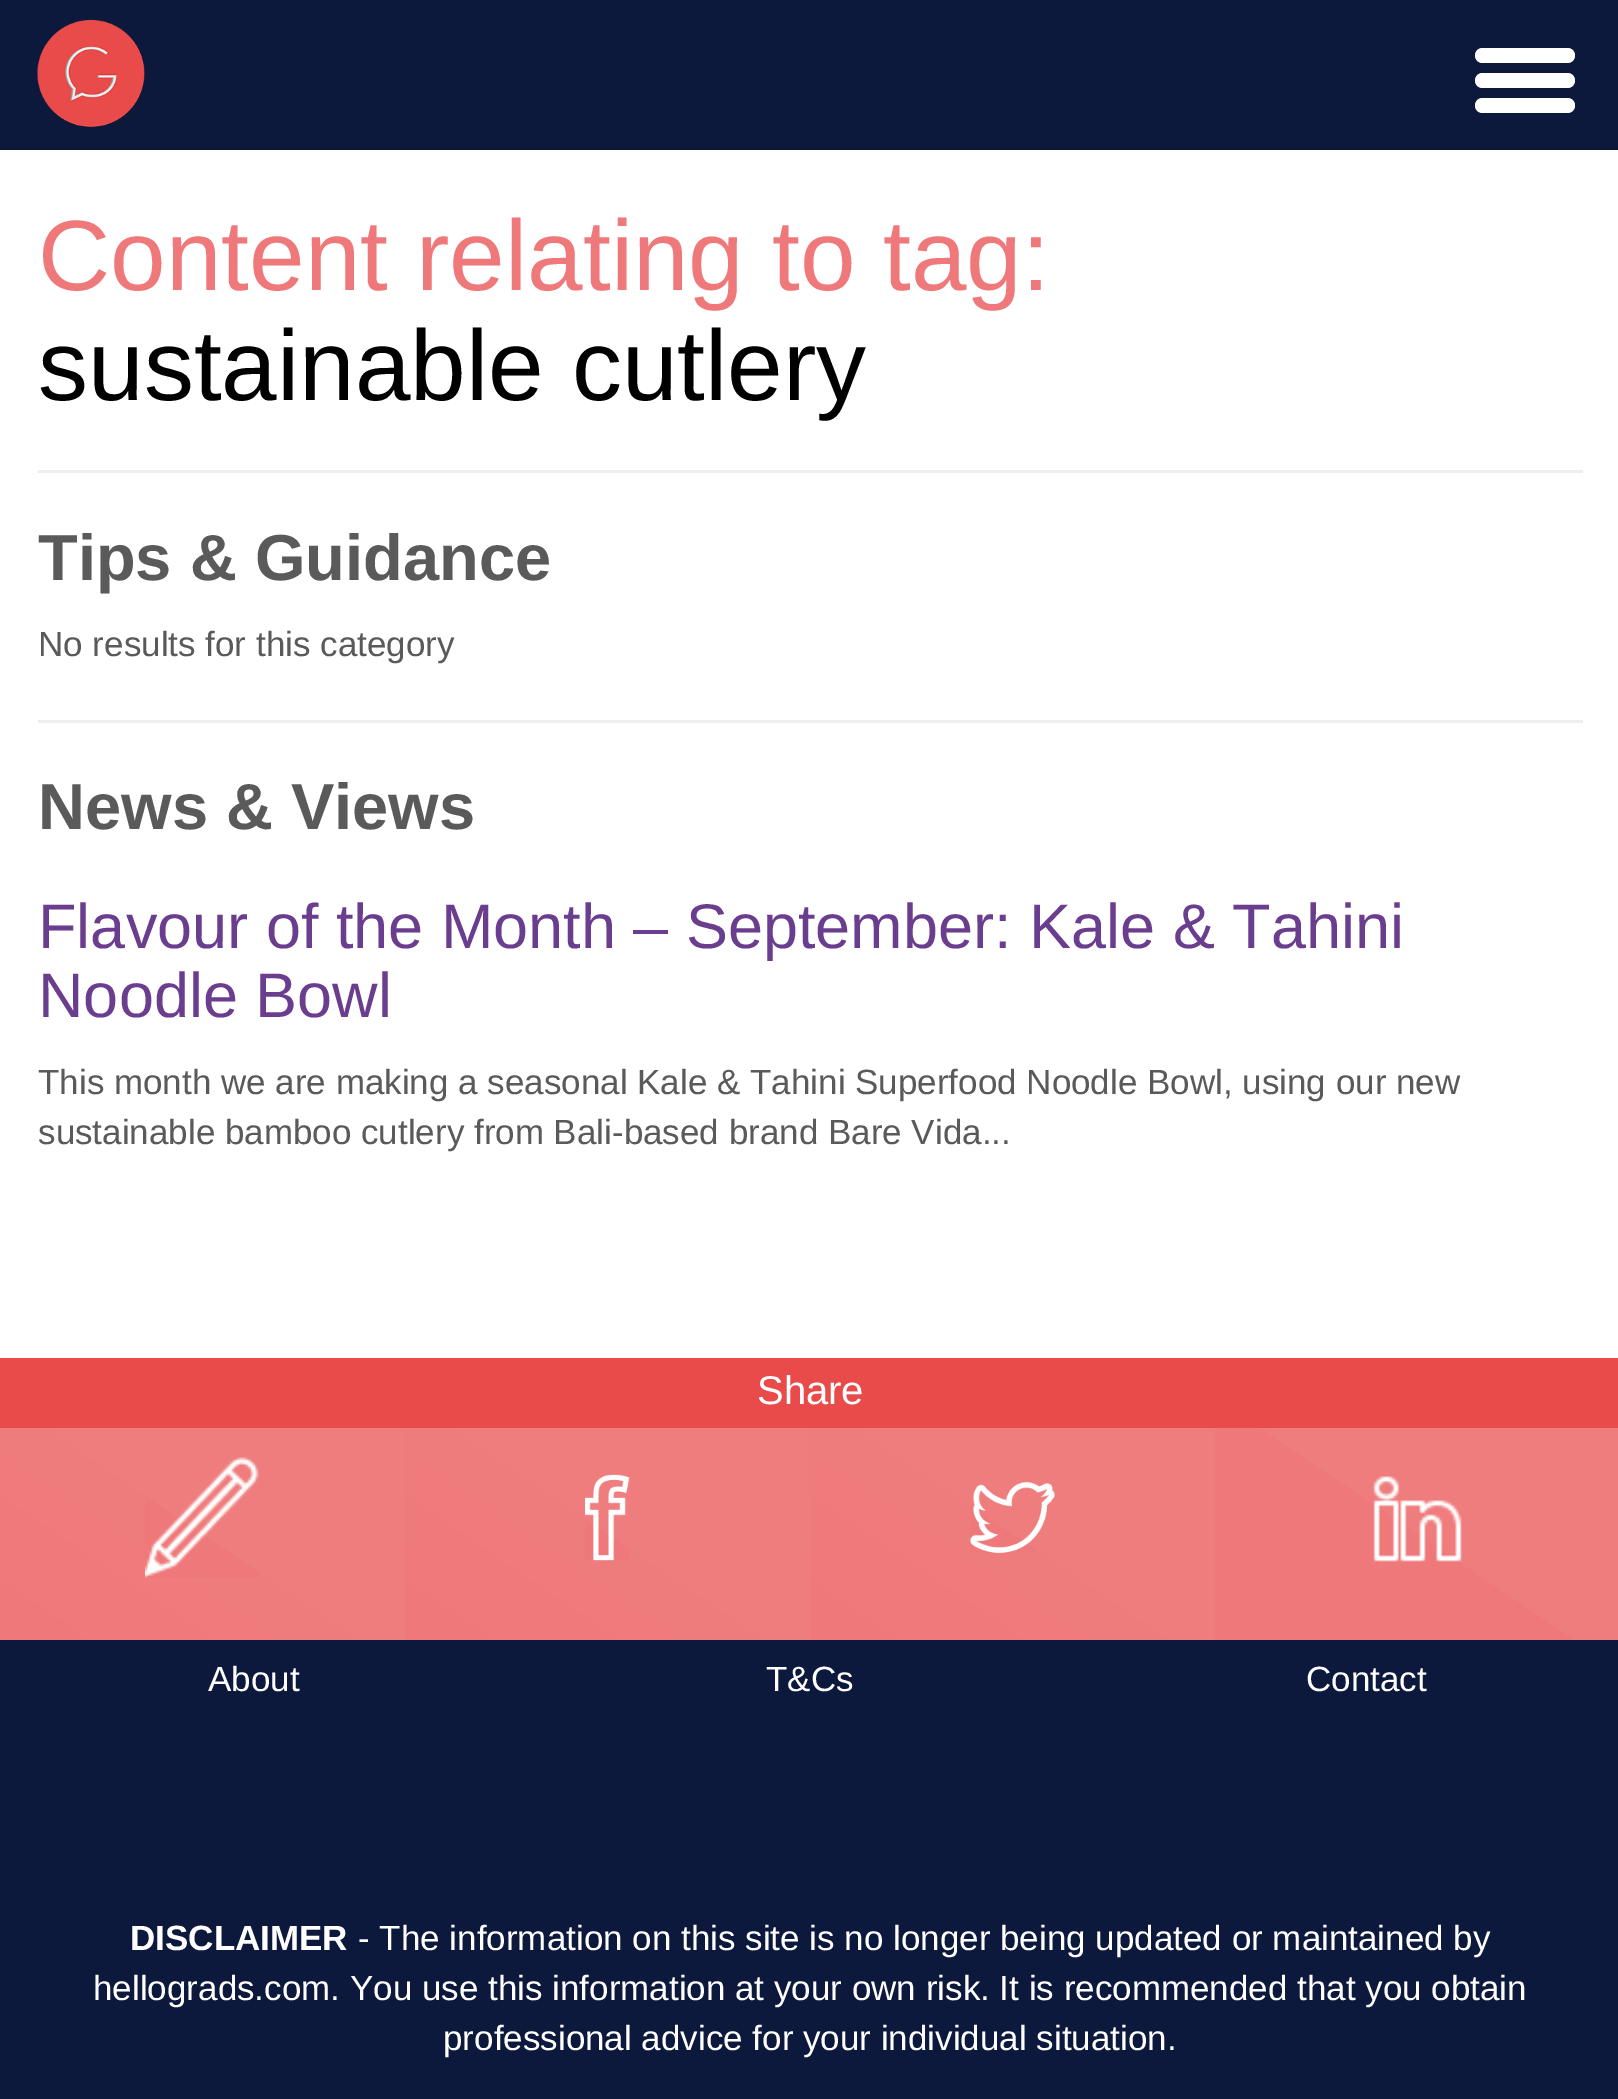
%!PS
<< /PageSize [1618 2099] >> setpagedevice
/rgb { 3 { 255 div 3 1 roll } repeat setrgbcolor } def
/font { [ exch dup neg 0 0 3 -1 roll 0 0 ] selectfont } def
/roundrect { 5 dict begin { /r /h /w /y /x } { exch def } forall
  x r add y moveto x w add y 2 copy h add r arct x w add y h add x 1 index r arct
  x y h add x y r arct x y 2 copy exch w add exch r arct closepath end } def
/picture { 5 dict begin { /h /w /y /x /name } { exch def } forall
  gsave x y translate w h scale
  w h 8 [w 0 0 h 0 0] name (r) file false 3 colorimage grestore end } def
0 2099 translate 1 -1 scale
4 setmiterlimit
12 25 60 rgb
0 0 1618 2099 rectfill
255 255 255 rgb
0 150 1618 1208 rectfill
(img/1.rgb) 37 20 108 107 picture
1475 73 100 15 7.5 roundrect fill
1475 48 100 15 7.5 roundrect fill
1475 98 100 15 7.5 roundrect fill
[
  [38 470 1545 3 238 238 238]
  [38 720 1545 3 238 238 238]
  [0 1358 1618 70 233 75 75]
] { aload pop rgb rectfill } forall
gsave 0 1428 moveto 405 1428 lineto 405 1640 lineto 0 1640 lineto closepath clip newpath
<< /ShadingType 2 /ColorSpace /DeviceRGB /Coords [90 1701 315 1367] /Extend [true true] /Function << /FunctionType 3 /Domain [0 1] /Functions [<< /FunctionType 2 /Domain [0 1] /C0 [0.937 0.471 0.478] /C1 [0.937 0.471 0.478] /N 1 >> << /FunctionType 2 /Domain [0 1] /C0 [0.941 0.49 0.494] /C1 [0.941 0.49 0.494] /N 1 >>] /Bounds [0.5] /Encode [0 1 0 1] >> >> shfill grestore
(img/2.rgb) 145 1457 114 121 picture
gsave 405 1428 moveto 810 1428 lineto 810 1640 lineto 405 1640 lineto closepath clip newpath
<< /ShadingType 2 /ColorSpace /DeviceRGB /Coords [495 1701 720 1367] /Extend [true true] /Function << /FunctionType 3 /Domain [0 1] /Functions [<< /FunctionType 2 /Domain [0 1] /C0 [0.937 0.471 0.478] /C1 [0.937 0.471 0.478] /N 1 >> << /FunctionType 2 /Domain [0 1] /C0 [0.941 0.49 0.494] /C1 [0.941 0.49 0.494] /N 1 >>] /Bounds [0.5] /Encode [0 1 0 1] >> >> shfill grestore
(img/3.rgb) 585 1474 45 87 picture
gsave 810 1428 moveto 1215 1428 lineto 1215 1640 lineto 810 1640 lineto closepath clip newpath
<< /ShadingType 2 /ColorSpace /DeviceRGB /Coords [900 1701 1125 1367] /Extend [true true] /Function << /FunctionType 3 /Domain [0 1] /Functions [<< /FunctionType 2 /Domain [0 1] /C0 [0.937 0.471 0.478] /C1 [0.937 0.471 0.478] /N 1 >> << /FunctionType 2 /Domain [0 1] /C0 [0.941 0.49 0.494] /C1 [0.941 0.49 0.494] /N 1 >>] /Bounds [0.5] /Encode [0 1 0 1] >> >> shfill grestore
(img/4.rgb) 970 1482 85 71 picture
gsave 1215 1428 moveto 1618 1428 lineto 1618 1640 lineto 1215 1640 lineto closepath clip newpath
<< /ShadingType 2 /ColorSpace /DeviceRGB /Coords [1305 1701 1530 1367] /Extend [true true] /Function << /FunctionType 3 /Domain [0 1] /Functions [<< /FunctionType 2 /Domain [0 1] /C0 [0.937 0.471 0.478] /C1 [0.937 0.471 0.478] /N 1 >> << /FunctionType 2 /Domain [0 1] /C0 [0.941 0.49 0.494] /C1 [0.941 0.49 0.494] /N 1 >>] /Bounds [0.5] /Encode [0 1 0 1] >> >> shfill grestore
(img/5.rgb) 1373 1476 89 86 picture
/LiberationSans-Regular 100 font
239 120 122 rgb
38 290 moveto (Content relating to tag:) show
0 0 0 rgb
38 400 moveto (sustainable cutlery) show
/LiberationSans-Bold 65 font
90 90 90 rgb
38 580 moveto (Tips & Guidance) show
/LiberationSans-Regular 35 font
38 656 moveto (No results for this category) show
/LiberationSans-Bold 65 font
38 829 moveto (News & Views) show
/LiberationSans-Regular 63 font
106 61 143 rgb
38 948 moveto (Flavour of the Month – September: Kale & Tahini) show
38 1017 moveto (Noodle Bowl) show
/LiberationSans-Regular 35 font
90 90 90 rgb
38 1094 moveto (This month we are making a seasonal Kale & Tahini Superfood Noodle Bowl, using our new) show
38 1144 moveto (sustainable bamboo cutlery from Bali-based brand Bare Vida...) show
/LiberationSans-Regular 40 font
255 255 255 rgb
757 1404 moveto (Share) show
/LiberationSans-Regular 35 font
[
  [(About) 208 1691]
  [(T&Cs) 766 1691]
  [(Contact) 1306 1691]
] { aload pop moveto show } forall
/LiberationSans-Bold 35 font
130 1950 moveto (DISCLAIMER) show
/LiberationSans-Regular 35 font
[
  [(- The information on this site is no longer being updated or maintained by) 358 1950]
  [(hellograds.com. You use this information at your own risk. It is recommended that you obtain) 93 2000]
  [(professional advice for your individual situation.) 443 2050]
] { aload pop moveto show } forall
showpage
